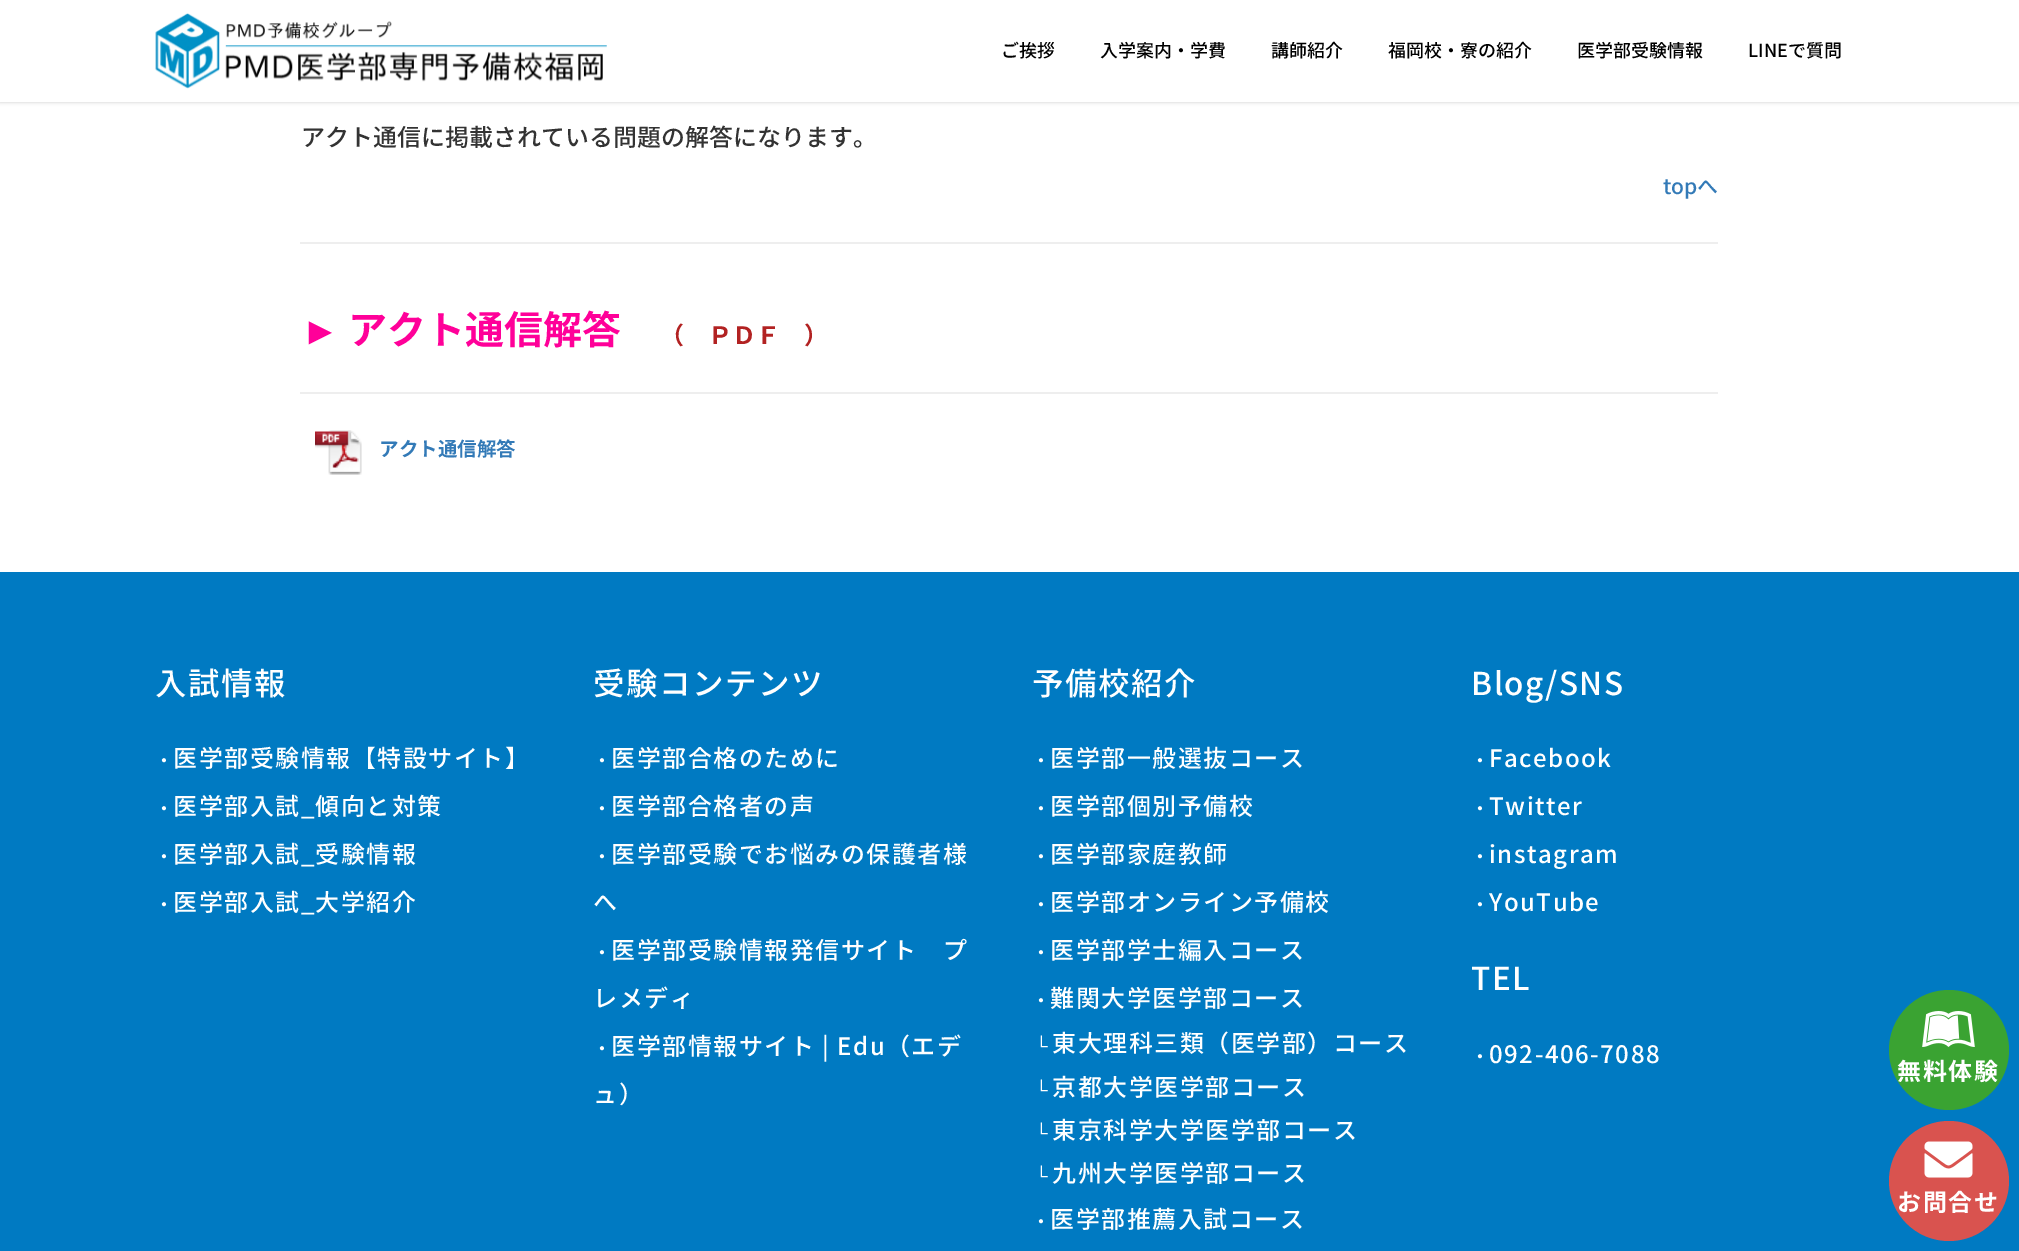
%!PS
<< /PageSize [2019 1251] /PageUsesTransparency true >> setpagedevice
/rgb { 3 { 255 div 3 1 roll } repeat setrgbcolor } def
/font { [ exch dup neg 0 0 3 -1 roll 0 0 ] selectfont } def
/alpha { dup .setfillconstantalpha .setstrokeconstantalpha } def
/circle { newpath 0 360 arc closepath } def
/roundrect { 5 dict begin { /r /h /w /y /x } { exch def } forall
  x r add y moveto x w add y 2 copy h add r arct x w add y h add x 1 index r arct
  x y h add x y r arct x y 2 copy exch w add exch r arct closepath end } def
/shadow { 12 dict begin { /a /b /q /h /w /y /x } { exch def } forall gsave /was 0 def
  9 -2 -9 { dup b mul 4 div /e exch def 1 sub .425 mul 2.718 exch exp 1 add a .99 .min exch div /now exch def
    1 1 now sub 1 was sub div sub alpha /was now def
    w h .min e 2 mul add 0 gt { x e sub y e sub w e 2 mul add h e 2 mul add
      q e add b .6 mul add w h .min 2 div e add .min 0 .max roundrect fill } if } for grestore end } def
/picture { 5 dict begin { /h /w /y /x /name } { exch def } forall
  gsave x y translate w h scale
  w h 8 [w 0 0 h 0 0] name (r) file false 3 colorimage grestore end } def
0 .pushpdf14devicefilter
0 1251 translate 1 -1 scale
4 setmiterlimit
255 255 255 rgb
0 0 2019 1251 rectfill
0 0 0 rgb
0 0 2019 102 0 2 0.2 shadow
255 255 255 rgb
0 0 2019 102 rectfill
(img/1.rgb) 155 13 452 76 picture
238 238 238 rgb
300 242 1418 2 rectfill
300 392 1418 2 rectfill
(img/2.rgb) 315 430 47 45 picture
0 122 194 rgb
0 572 2019 679 rectfill
58 163 50 rgb
1949 1050 60 circle fill
(img/3.rgb) 1922 1011 53 36 picture
217 83 79 rgb
1949 1181 60 circle fill
(img/4.rgb) 1924 1141 49 37 picture
/NotoSansJP-Medium 18 font
0 0 0 rgb
[
  [(ご挨拶) 1001 57]
  [(入学案内・学費) 1100 57]
  [(講師紹介) 1271 57]
  [(福岡校・寮の紹介) 1388 57]
  [(医学部受験情報) 1577 57]
  [(LINEで質問) 1748 57]
] { aload pop moveto show } forall
/NotoSansJP-Medium 24 font
51 51 51 rgb
301 146 moveto (アクト通信に掲載されている問題の解答になります。) show
/NotoSansJP-Medium 21 font
51 122 183 rgb
1663 194 moveto (topへ) show
/LiberationSerif-Bold 39 font
255 0 153 rgb
301 344 moveto (►) show
/NotoSansJP-Bold 39 font
348 344 moveto (アクト通信解答) show
/NotoSansJP-Bold 24 font
178 34 34 rgb
660 344 moveto (（　ＰＤＦ　）) show
/NotoSansJP-Bold 19.5 font
51 122 183 rgb
379 456 moveto (アクト通信解答) show
/NotoSansJP-Medium 31.5 font
255 255 255 rgb
155 695 moveto 1.5 0 (入試情報) ashow
/NotoSansJP-Medium 18 font
155 767 moveto (・) show
/NotoSansJP-Medium 24 font
173 767 moveto 1.5 0 (医学部受験情報【特設サイト】) ashow
/NotoSansJP-Medium 18 font
155 815 moveto (・) show
/NotoSansJP-Medium 24 font
173 815 moveto 1.5 0 (医学部入試_傾向と対策) ashow
/NotoSansJP-Medium 18 font
155 863 moveto (・) show
/NotoSansJP-Medium 24 font
173 863 moveto 1.5 0 (医学部入試_受験情報) ashow
/NotoSansJP-Medium 18 font
155 911 moveto (・) show
/NotoSansJP-Medium 24 font
173 911 moveto 1.5 0 (医学部入試_大学紹介) ashow
/NotoSansJP-Medium 31.5 font
593 695 moveto 1.5 0 (受験コンテンツ) ashow
/NotoSansJP-Medium 18 font
593 767 moveto (・) show
/NotoSansJP-Medium 24 font
611 767 moveto 1.5 0 (医学部合格のために) ashow
/NotoSansJP-Medium 18 font
593 815 moveto (・) show
/NotoSansJP-Medium 24 font
611 815 moveto 1.5 0 (医学部合格者の声) ashow
/NotoSansJP-Medium 18 font
593 863 moveto (・) show
/NotoSansJP-Medium 24 font
611 863 moveto 1.5 0 (医学部受験でお悩みの保護者様) ashow
593 911 moveto 1.5 0 (へ) ashow
/NotoSansJP-Medium 18 font
593 959 moveto (・) show
/NotoSansJP-Medium 24 font
611 959 moveto 1.5 0 (医学部受験情報発信サイト　プ) ashow
593 1007 moveto 1.5 0 (レメディ) ashow
/NotoSansJP-Medium 18 font
593 1055 moveto (・) show
/NotoSansJP-Medium 24 font
611 1055 moveto 1.5 0 (医学部情報サイト | Edu（エデ) ashow
593 1103 moveto 1.5 0 (ュ）) ashow
/NotoSansJP-Medium 31.5 font
1032 695 moveto 1.5 0 (予備校紹介) ashow
/NotoSansJP-Medium 18 font
1032 767 moveto (・) show
/NotoSansJP-Medium 24 font
1050 767 moveto 1.5 0 (医学部一般選抜コース) ashow
/NotoSansJP-Medium 18 font
1032 815 moveto (・) show
/NotoSansJP-Medium 24 font
1050 815 moveto 1.5 0 (医学部個別予備校) ashow
/NotoSansJP-Medium 18 font
1032 863 moveto (・) show
/NotoSansJP-Medium 24 font
1050 863 moveto 1.5 0 (医学部家庭教師) ashow
/NotoSansJP-Medium 18 font
1032 911 moveto (・) show
/NotoSansJP-Medium 24 font
1050 911 moveto 1.5 0 (医学部オンライン予備校) ashow
/NotoSansJP-Medium 18 font
1032 959 moveto (・) show
/NotoSansJP-Medium 24 font
1050 959 moveto 1.5 0 (医学部学士編入コース) ashow
/NotoSansJP-Medium 18 font
1032 1007 moveto (・) show
/NotoSansJP-Medium 24 font
1050 1007 moveto 1.5 0 (難関大学医学部コース) ashow
/LiberationSerif-Regular 18 font
1035 1052 moveto (└) show
/NotoSansJP-Medium 24 font
1052 1052 moveto 1.5 0 (東大理科三類（医学部）コース) ashow
/LiberationSerif-Regular 18 font
1035 1096 moveto (└) show
/NotoSansJP-Medium 24 font
1052 1096 moveto 1.5 0 (京都大学医学部コース) ashow
/LiberationSerif-Regular 18 font
1035 1139 moveto (└) show
/NotoSansJP-Medium 24 font
1052 1139 moveto 1.5 0 (東京科学大学医学部コース) ashow
/LiberationSerif-Regular 18 font
1035 1182 moveto (└) show
/NotoSansJP-Medium 24 font
1052 1182 moveto 1.5 0 (九州大学医学部コース) ashow
/NotoSansJP-Medium 18 font
1032 1228 moveto (・) show
/NotoSansJP-Medium 24 font
1050 1228 moveto 1.5 0 (医学部推薦入試コース) ashow
/NotoSansJP-Medium 31.5 font
1471 695 moveto 1.5 0 (Blog/SNS) ashow
/NotoSansJP-Medium 18 font
1471 767 moveto (・) show
/NotoSansJP-Medium 24 font
1489 767 moveto 1.5 0 (Facebook) ashow
/NotoSansJP-Medium 18 font
1471 815 moveto (・) show
/NotoSansJP-Medium 24 font
1489 815 moveto 1.5 0 (Twitter) ashow
/NotoSansJP-Medium 18 font
1471 863 moveto (・) show
/NotoSansJP-Medium 24 font
1489 863 moveto 1.5 0 (instagram) ashow
/NotoSansJP-Medium 18 font
1471 911 moveto (・) show
/NotoSansJP-Medium 24 font
1489 911 moveto 1.5 0 (YouTube) ashow
/NotoSansJP-Medium 31.5 font
1471 990 moveto 1.5 0 (TEL) ashow
/NotoSansJP-Medium 18 font
1471 1063 moveto (・) show
/NotoSansJP-Medium 24 font
1489 1063 moveto 1.5 0 (092-406-7088) ashow
/NotoSansJP-Bold 24 font
1897 1080 moveto 1.5 0 (無料体験) ashow
1897 1211 moveto 1.5 0 (お問合せ) ashow
.poppdf14devicefilter showpage
